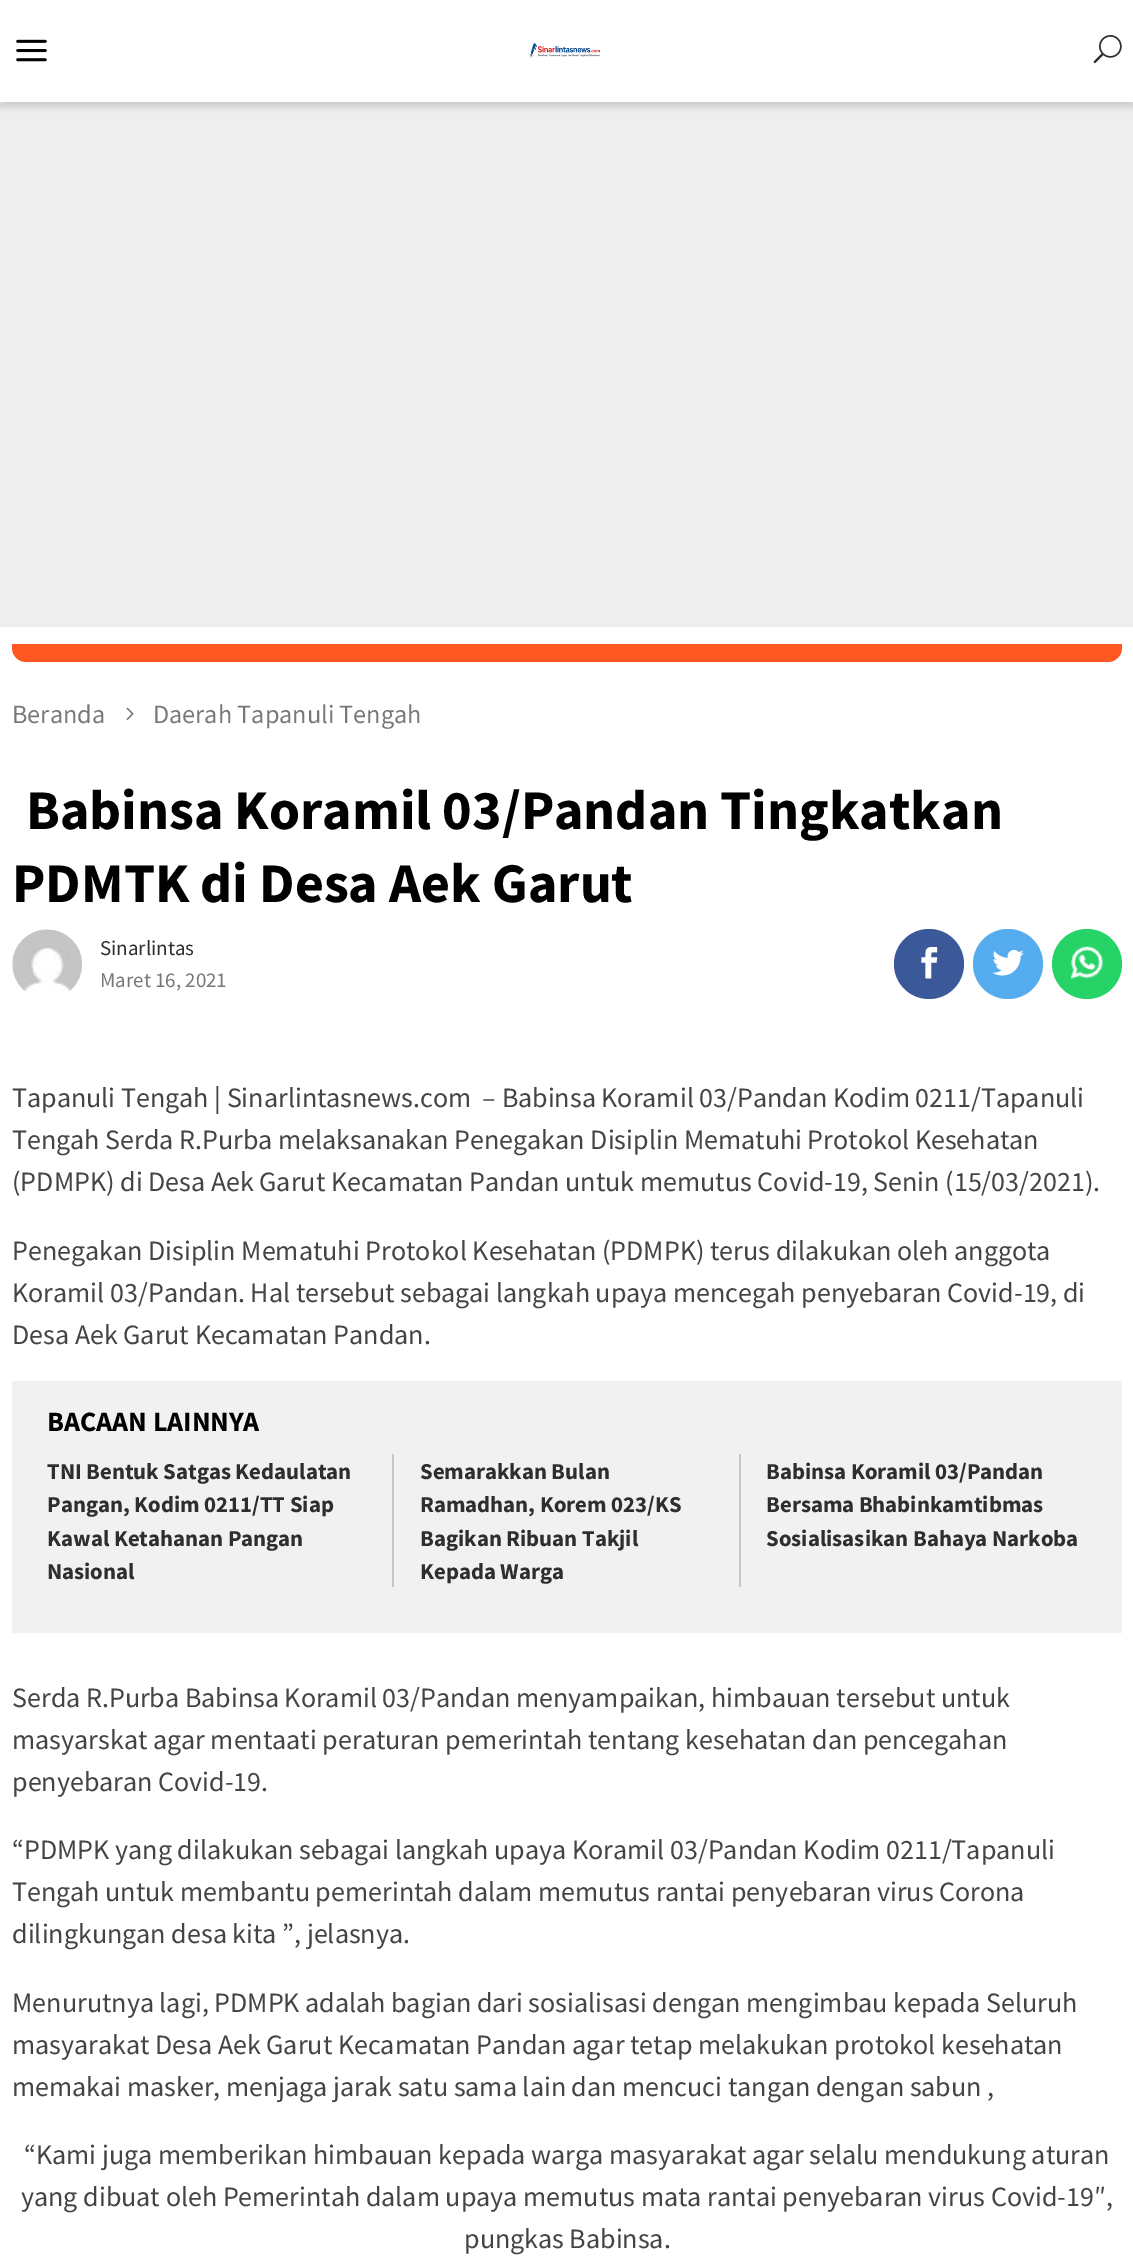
%!PS
<< /PageSize [1133 2267] /PageUsesTransparency true >> setpagedevice
/rgb { 3 { 255 div 3 1 roll } repeat setrgbcolor } def
/font { [ exch dup neg 0 0 3 -1 roll 0 0 ] selectfont } def
/alpha { dup .setfillconstantalpha .setstrokeconstantalpha } def
/circle { newpath 0 360 arc closepath } def
/roundrect { 5 dict begin { /r /h /w /y /x } { exch def } forall
  x r add y moveto x w add y 2 copy h add r arct x w add y h add x 1 index r arct
  x y h add x y r arct x y 2 copy exch w add exch r arct closepath end } def
/shadow { 12 dict begin { /a /b /q /h /w /y /x } { exch def } forall gsave /was 0 def
  9 -2 -9 { dup b mul 4 div /e exch def 1 sub .425 mul 2.718 exch exp 1 add a .99 .min exch div /now exch def
    1 1 now sub 1 was sub div sub alpha /was now def
    w h .min e 2 mul add 0 gt { x e sub y e sub w e 2 mul add h e 2 mul add
      q e add b .6 mul add w h .min 2 div e add .min 0 .max roundrect fill } if } for grestore end } def
/picture { 5 dict begin { /h /w /y /x /name } { exch def } forall
  gsave x y translate w h scale
  w h 8 [w 0 0 h 0 0] name (r) file false 3 colorimage grestore end } def
0 .pushpdf14devicefilter
0 2267 translate 1 -1 scale
4 setmiterlimit
238 238 238 rgb
0 0 1133 2267 rectfill
52 52 52 rgb
0 5 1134 102 0 3.5 0.18 shadow
255 255 255 rgb
0 0 1133 102 rectfill
(img/1.rgb) 16 39 31 23 picture
(img/2.rgb) 528 43 72 16 picture
(img/3.rgb) 1093 35 29 29 picture
0 627 1133 1640 rectfill
255 87 34 rgb
12 644 moveto 1122 644 lineto 1122 648 lineto 1122 655.5 1115.5 662 1108 662 curveto 26 662 lineto 18.5 662 12 655.5 12 648 curveto closepath fill
(img/4.rgb) 126 707 8 13 picture
(img/5.rgb) 12 929 70 63 picture
59 89 152 rgb
929 964 35 circle fill
(img/6.rgb) 921 947 17 32 picture
85 172 238 rgb
1008 964 35 circle fill
(img/7.rgb) 992 949 32 27 picture
37 211 102 rgb
1087 964 35 circle fill
(img/8.rgb) 1071 946 32 33 picture
[
  [12 1381 1110 252 241 241 241]
  [392 1454 2 133 199 199 199]
  [739 1454 2 133 199 199 199]
] { aload pop rgb rectfill } forall
/SourceSansPro-Regular 26.25 font
120 120 120 rgb
12 723 moveto (Beranda) show
153 723 moveto (Daerah Tapanuli Tengah) show
/SourceSansPro-Bold 56 font
0 0 0 rgb
26 829 moveto (Babinsa Koramil 03/Pandan Tingkatkan) show
12 902 moveto (PDMTK di Desa Aek Garut) show
/SourceSansPro-Regular 21 font
46 46 46 rgb
100 955 moveto (Sinarlintas) show
120 120 120 rgb
100 987 moveto (Maret 16, 2021) show
/SourceSansPro-Regular 28 font
68 68 68 rgb
[
  [(Tapanuli Tengah | Sinarlintasnews.com  – Babinsa Koramil 03/Pandan Kodim 0211/Tapanuli) 12 1107]
  [(Tengah Serda R.Purba melaksanakan Penegakan Disiplin Mematuhi Protokol Kesehatan) 12 1149]
  [(\(PDMPK\) di Desa Aek Garut Kecamatan Pandan untuk memutus Covid-19, Senin \(15/03/2021\).) 12 1191]
  [(Penegakan Disiplin Mematuhi Protokol Kesehatan \(PDMPK\) terus dilakukan oleh anggota) 12 1260]
  [(Koramil 03/Pandan. Hal tersebut sebagai langkah upaya mencegah penyebaran Covid-19, di) 12 1302]
  [(Desa Aek Garut Kecamatan Pandan.) 12 1344]
] { aload pop moveto show } forall
/SourceSansPro-Bold 28 font
0 0 0 rgb
47 1431 moveto (BACAAN LAINNYA) show
/SourceSansPro-Bold 22.75 font
46 46 46 rgb
[
  [(TNI Bentuk Satgas Kedaulatan) 47 1479]
  [(Pangan, Kodim 0211/TT Siap) 47 1512]
  [(Kawal Ketahanan Pangan) 47 1546]
  [(Nasional) 47 1579]
  [(Semarakkan Bulan) 420 1479]
  [(Ramadhan, Korem 023/KS) 420 1512]
  [(Bagikan Ribuan Takjil) 420 1546]
  [(Kepada Warga) 420 1579]
  [(Babinsa Koramil 03/Pandan) 766 1479]
  [(Bersama Bhabinkamtibmas) 766 1512]
  [(Sosialisasikan Bahaya Narkoba) 766 1546]
] { aload pop moveto show } forall
/SourceSansPro-Regular 28 font
68 68 68 rgb
[
  [(Serda R.Purba Babinsa Koramil 03/Pandan menyampaikan, himbauan tersebut untuk) 12 1707]
  [(masyarskat agar mentaati peraturan pemerintah tentang kesehatan dan pencegahan) 12 1749]
  [(penyebaran Covid-19.) 12 1791]
  [(“PDMPK yang dilakukan sebagai langkah upaya Koramil 03/Pandan Kodim 0211/Tapanuli) 12 1859]
  [(Tengah untuk membantu pemerintah dalam memutus rantai penyebaran virus Corona) 12 1901]
  [(dilingkungan desa kita ”, jelasnya.) 12 1943]
  [(Menurutnya lagi, PDMPK adalah bagian dari sosialisasi dengan mengimbau kepada Seluruh) 12 2012]
  [(masyarakat Desa Aek Garut Kecamatan Pandan agar tetap melakukan protokol kesehatan) 12 2054]
  [(memakai masker, menjaga jarak satu sama lain dan mencuci tangan dengan sabun ,) 12 2096]
  [(“Kami juga memberikan himbauan kepada warga masyarakat agar selalu mendukung aturan) 24 2164]
  [(yang dibuat oleh Pemerintah dalam upaya memutus mata rantai penyebaran virus Covid-19″,) 21 2206]
  [(pungkas Babinsa.) 464 2248]
] { aload pop moveto show } forall
.poppdf14devicefilter showpage
